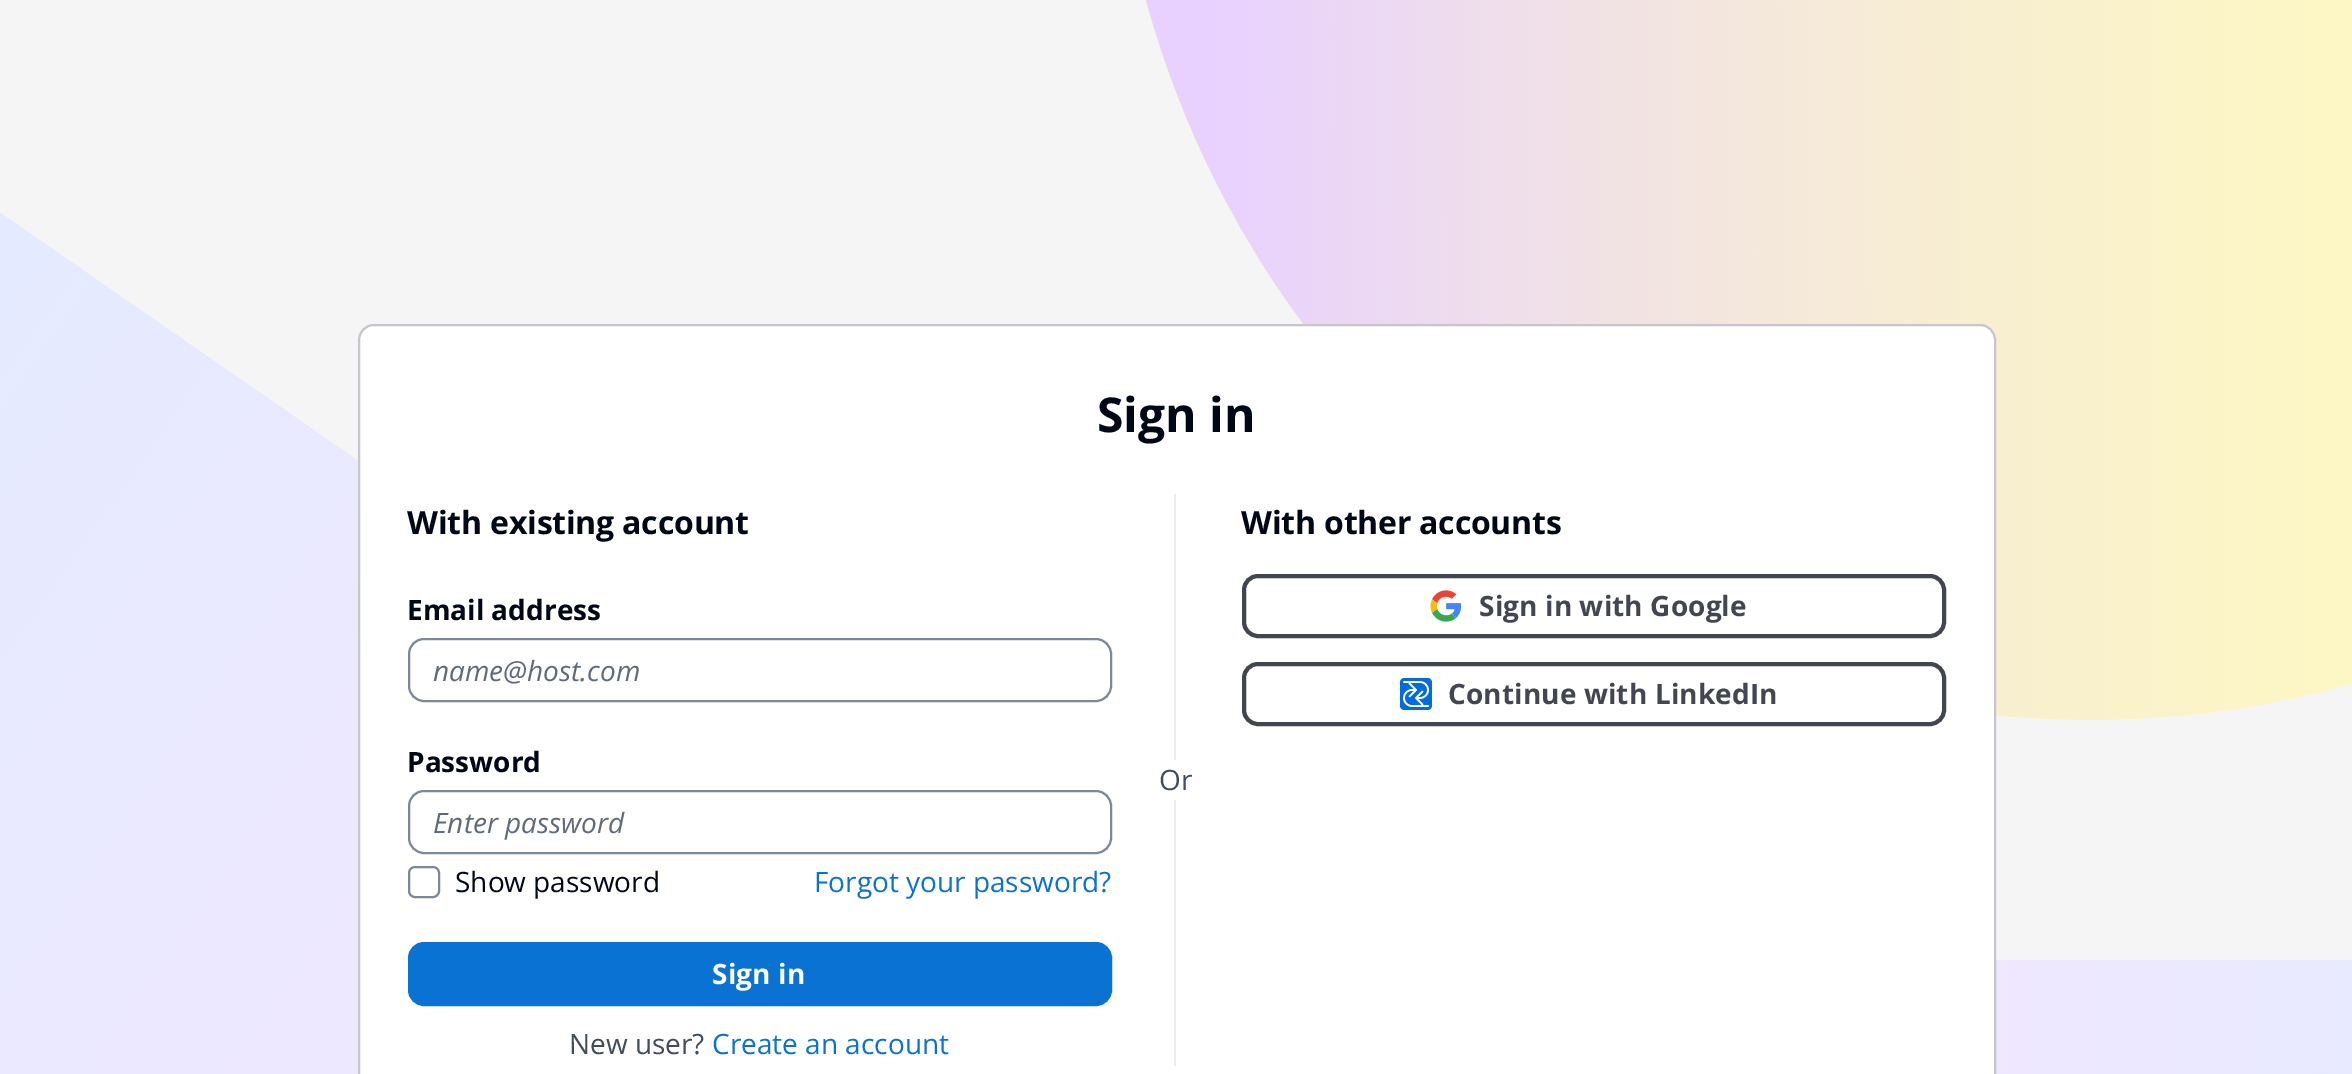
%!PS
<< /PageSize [2352 1074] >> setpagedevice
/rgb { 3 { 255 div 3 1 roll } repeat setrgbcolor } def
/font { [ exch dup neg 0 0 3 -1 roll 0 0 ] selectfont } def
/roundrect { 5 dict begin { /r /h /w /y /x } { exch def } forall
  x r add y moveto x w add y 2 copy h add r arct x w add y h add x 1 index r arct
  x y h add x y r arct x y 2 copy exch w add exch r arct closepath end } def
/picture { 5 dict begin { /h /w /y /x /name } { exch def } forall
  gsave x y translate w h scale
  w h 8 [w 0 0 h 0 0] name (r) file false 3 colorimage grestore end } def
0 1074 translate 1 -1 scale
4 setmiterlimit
255 255 255 rgb
0 0 2352 1074 rectfill
(img/1.rgb) 0 0 2352 1074 picture
359 325 1636 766 15 roundrect gsave fill grestore
198 198 205 rgb
2 setlinewidth
stroke
125 137 152 rgb
409 639 702 62 15 roundrect stroke
409 791 702 62 15 roundrect stroke
409 867 30 30 6 roundrect stroke
9 114 211 rgb
410 944 700 60 14 roundrect gsave fill grestore
4 setlinewidth
stroke
66 70 80 rgb
1244 576 700 60 14 roundrect stroke
(img/2.rgb) 1430 590 32 32 picture
1244 664 700 60 14 roundrect stroke
(img/3.rgb) 1400 678 32 32 picture
235 235 240 rgb
1174 494 2 266 rectfill
1174 800 2 266 rectfill
/OpenSans-Bold 48 font
0 7 22 rgb
1097 432 moveto (Sign in) show
/OpenSans-Bold 32 font
407 534 moveto -0.2 0 (With existing account) ashow
/OpenSans-Bold 28 font
407 620 moveto (Email address) show
/OpenSans-Italic 28 font
95 107 122 rgb
433 681 moveto (name@host.com) show
/OpenSans-Bold 28 font
0 7 22 rgb
407 772 moveto (Password) show
/OpenSans-Italic 28 font
95 107 122 rgb
433 833 moveto (Enter password) show
/OpenSans-Regular 28 font
0 7 22 rgb
455 892 moveto (Show password) show
9 114 211 rgb
814 892 moveto (Forgot your password?) show
/OpenSans-Bold 28 font
255 255 255 rgb
712 984 moveto 0.1 0 (Sign in) ashow
/OpenSans-Regular 28 font
65 77 92 rgb
569 1054 moveto (New user?) show
9 114 211 rgb
712 1054 moveto (Create an account) show
/OpenSans-Bold 32 font
0 7 22 rgb
1241 534 moveto -0.2 0 (With other accounts) ashow
/OpenSans-Bold 28 font
66 70 80 rgb
1479 616 moveto 0.1 0 (Sign in with Google) ashow
1448 704 moveto 0.1 0 (Continue with LinkedIn) ashow
/OpenSans-Regular 28 font
65 77 92 rgb
1159 790 moveto (Or) show
showpage
